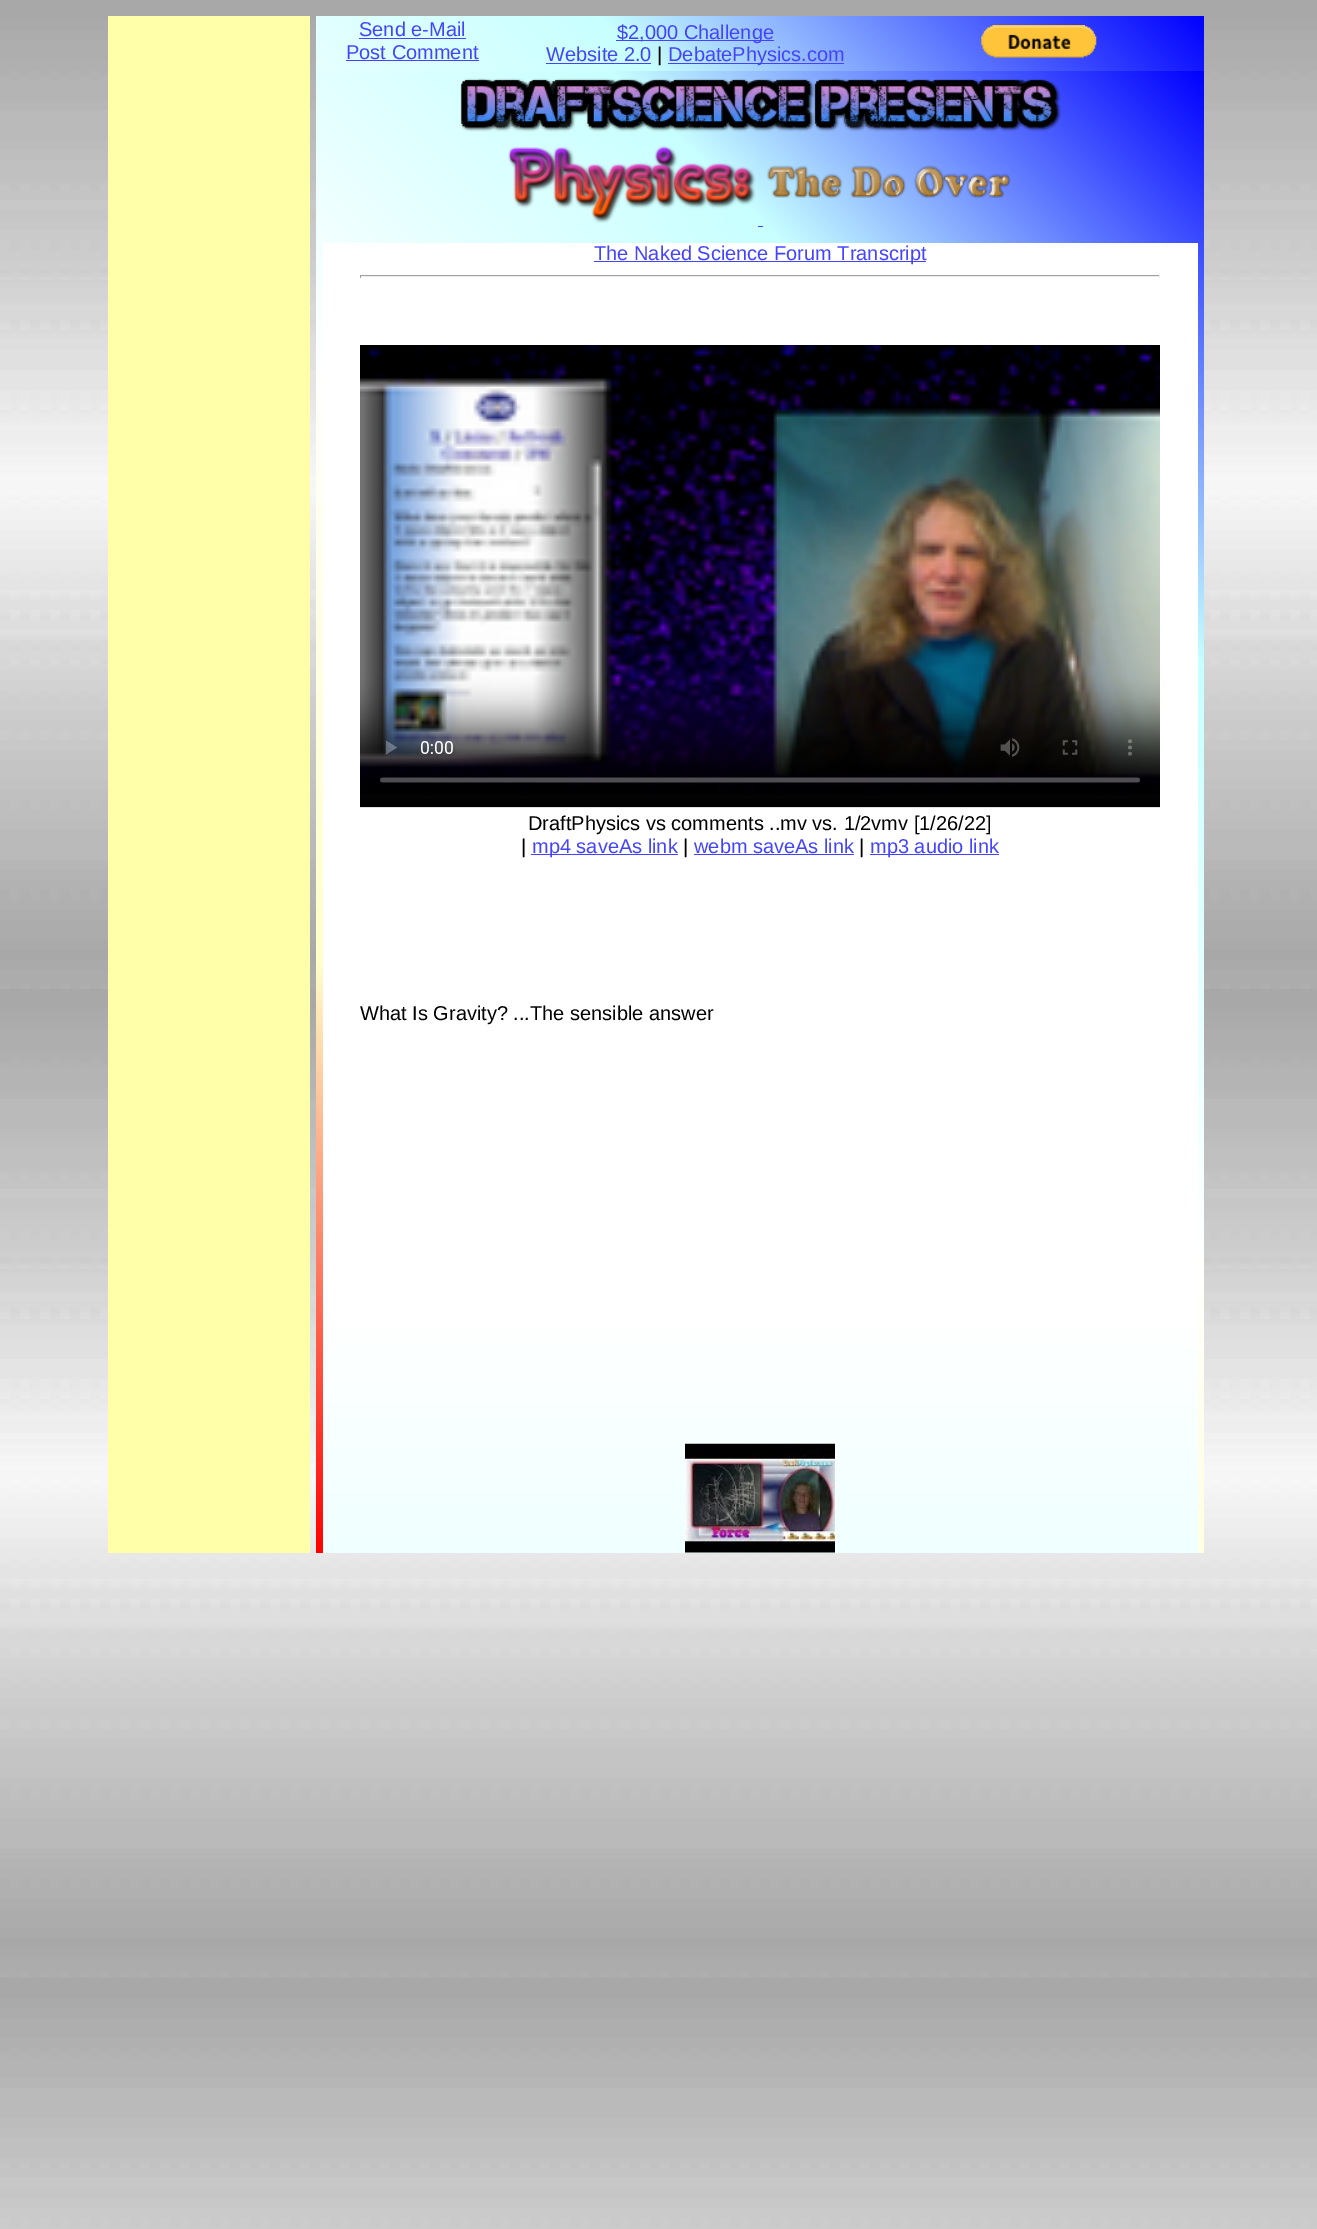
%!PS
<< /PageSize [1317 2229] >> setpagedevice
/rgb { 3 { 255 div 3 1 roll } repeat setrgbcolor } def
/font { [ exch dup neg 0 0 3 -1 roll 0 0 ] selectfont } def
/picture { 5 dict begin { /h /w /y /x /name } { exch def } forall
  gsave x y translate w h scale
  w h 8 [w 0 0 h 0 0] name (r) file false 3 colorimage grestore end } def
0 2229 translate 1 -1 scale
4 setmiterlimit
255 255 255 rgb
0 0 1317 2229 rectfill
(img/1.rgb) 0 0 1317 2229 picture
255 255 170 rgb
108 16 202 1537 rectfill
gsave 316 16 moveto 1204 16 lineto 1204 71 lineto 316 71 lineto closepath clip newpath
<< /ShadingType 2 /ColorSpace /DeviceRGB /Coords [154 1390 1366 178] /Extend [true true] /Function << /FunctionType 3 /Domain [0 1] /Functions [<< /FunctionType 2 /Domain [0 1] /C0 [1 0 0] /C1 [1 1 0.784] /N 1 >> << /FunctionType 2 /Domain [0 1] /C0 [1 1 0.784] /C1 [1 1 1] /N 1 >> << /FunctionType 2 /Domain [0 1] /C0 [1 1 1] /C1 [0.784 1 1] /N 1 >> << /FunctionType 2 /Domain [0 1] /C0 [0.784 1 1] /C1 [0 0 1] /N 1 >>] /Bounds [0.25 0.5 0.75] /Encode [0 1 0 1 0 1 0 1] >> >> shfill grestore
[
  [359 38 107 1 68 68 255]
  [346 60 133 1 68 68 255]
  [616 40 158 1 68 68 255]
  [546 63 105 1 68 68 255]
  [668 63 176 1 68 68 255]
] { aload pop rgb rectfill } forall
(img/2.rgb) 981 25 116 33 picture
gsave 316 71 moveto 1204 71 lineto 1204 1553 lineto 316 1553 lineto closepath clip newpath
<< /ShadingType 2 /ColorSpace /DeviceRGB /Coords [168 1404 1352 220] /Extend [true true] /Function << /FunctionType 3 /Domain [0 1] /Functions [<< /FunctionType 2 /Domain [0 1] /C0 [1 0 0] /C1 [1 1 0.784] /N 1 >> << /FunctionType 2 /Domain [0 1] /C0 [1 1 0.784] /C1 [1 1 1] /N 1 >> << /FunctionType 2 /Domain [0 1] /C0 [1 1 1] /C1 [0.784 1 1] /N 1 >> << /FunctionType 2 /Domain [0 1] /C0 [0.784 1 1] /C1 [0 0 1] /N 1 >>] /Bounds [0.25 0.5 0.75] /Encode [0 1 0 1 0 1 0 1] >> >> shfill grestore
(img/3.rgb) 460 78 602 54 picture
(img/4.rgb) 508 146 248 77 picture
(img/5.rgb) 766 165 245 33 picture
758 226 5 1 rectfill
gsave 323 243 moveto 1198 243 lineto 1198 1553 lineto 323 1553 lineto closepath clip newpath
<< /ShadingType 2 /ColorSpace /DeviceRGB /Coords [760 243 760 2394] /Extend [true true] /Function << /FunctionType 3 /Domain [0 1] /Functions [<< /FunctionType 2 /Domain [0 1] /C0 [1 1 1] /C1 [1 1 1] /N 1 >> << /FunctionType 2 /Domain [0 1] /C0 [1 1 1] /C1 [0.733 1 1] /N 1 >>] /Bounds [0.5] /Encode [0 1 0 1] >> >> shfill grestore
[
  [594 261 332 1 68 68 255]
  [360 275 800 1 159 159 159]
  [1159 275 1 3 238 238 238]
  [360 276 800 1 238 238 238]
  [360 275 1 3 159 159 159]
] { aload pop rgb rectfill } forall
(img/6.rgb) 360 345 800 463 picture
[
  [531 854 147 1 68 68 255]
  [694 854 160 1 68 68 255]
  [870 854 129 1 68 68 255]
] { aload pop rgb rectfill } forall
(img/7.rgb) 685 1443 150 110 picture
/LiberationSans-Regular 20 font
[
  [(Send e-Mail) 359 36]
  [(Post Comment) 346 59]
  [($2,000 Challenge) 617 39]
  [(Website 2.0) 546 61]
] { aload pop moveto show } forall
0 0 0 rgb
657 61 moveto (|) show
68 68 255 rgb
668 61 moveto (DebatePhysics.com) show
594 260 moveto (The Naked Science Forum Transcript) show
0 0 0 rgb
528 830 moveto (DraftPhysics vs comments ..mv vs. 1/2vmv [1/26/22]) show
521 853 moveto (|) show
68 68 255 rgb
532 853 moveto (mp4 saveAs link) show
0 0 0 rgb
683 853 moveto (|) show
68 68 255 rgb
694 853 moveto (webm saveAs link) show
0 0 0 rgb
859 853 moveto (|) show
68 68 255 rgb
870 853 moveto (mp3 audio link) show
0 0 0 rgb
360 1020 moveto (What Is Gravity? ...The sensible answer) show
showpage
